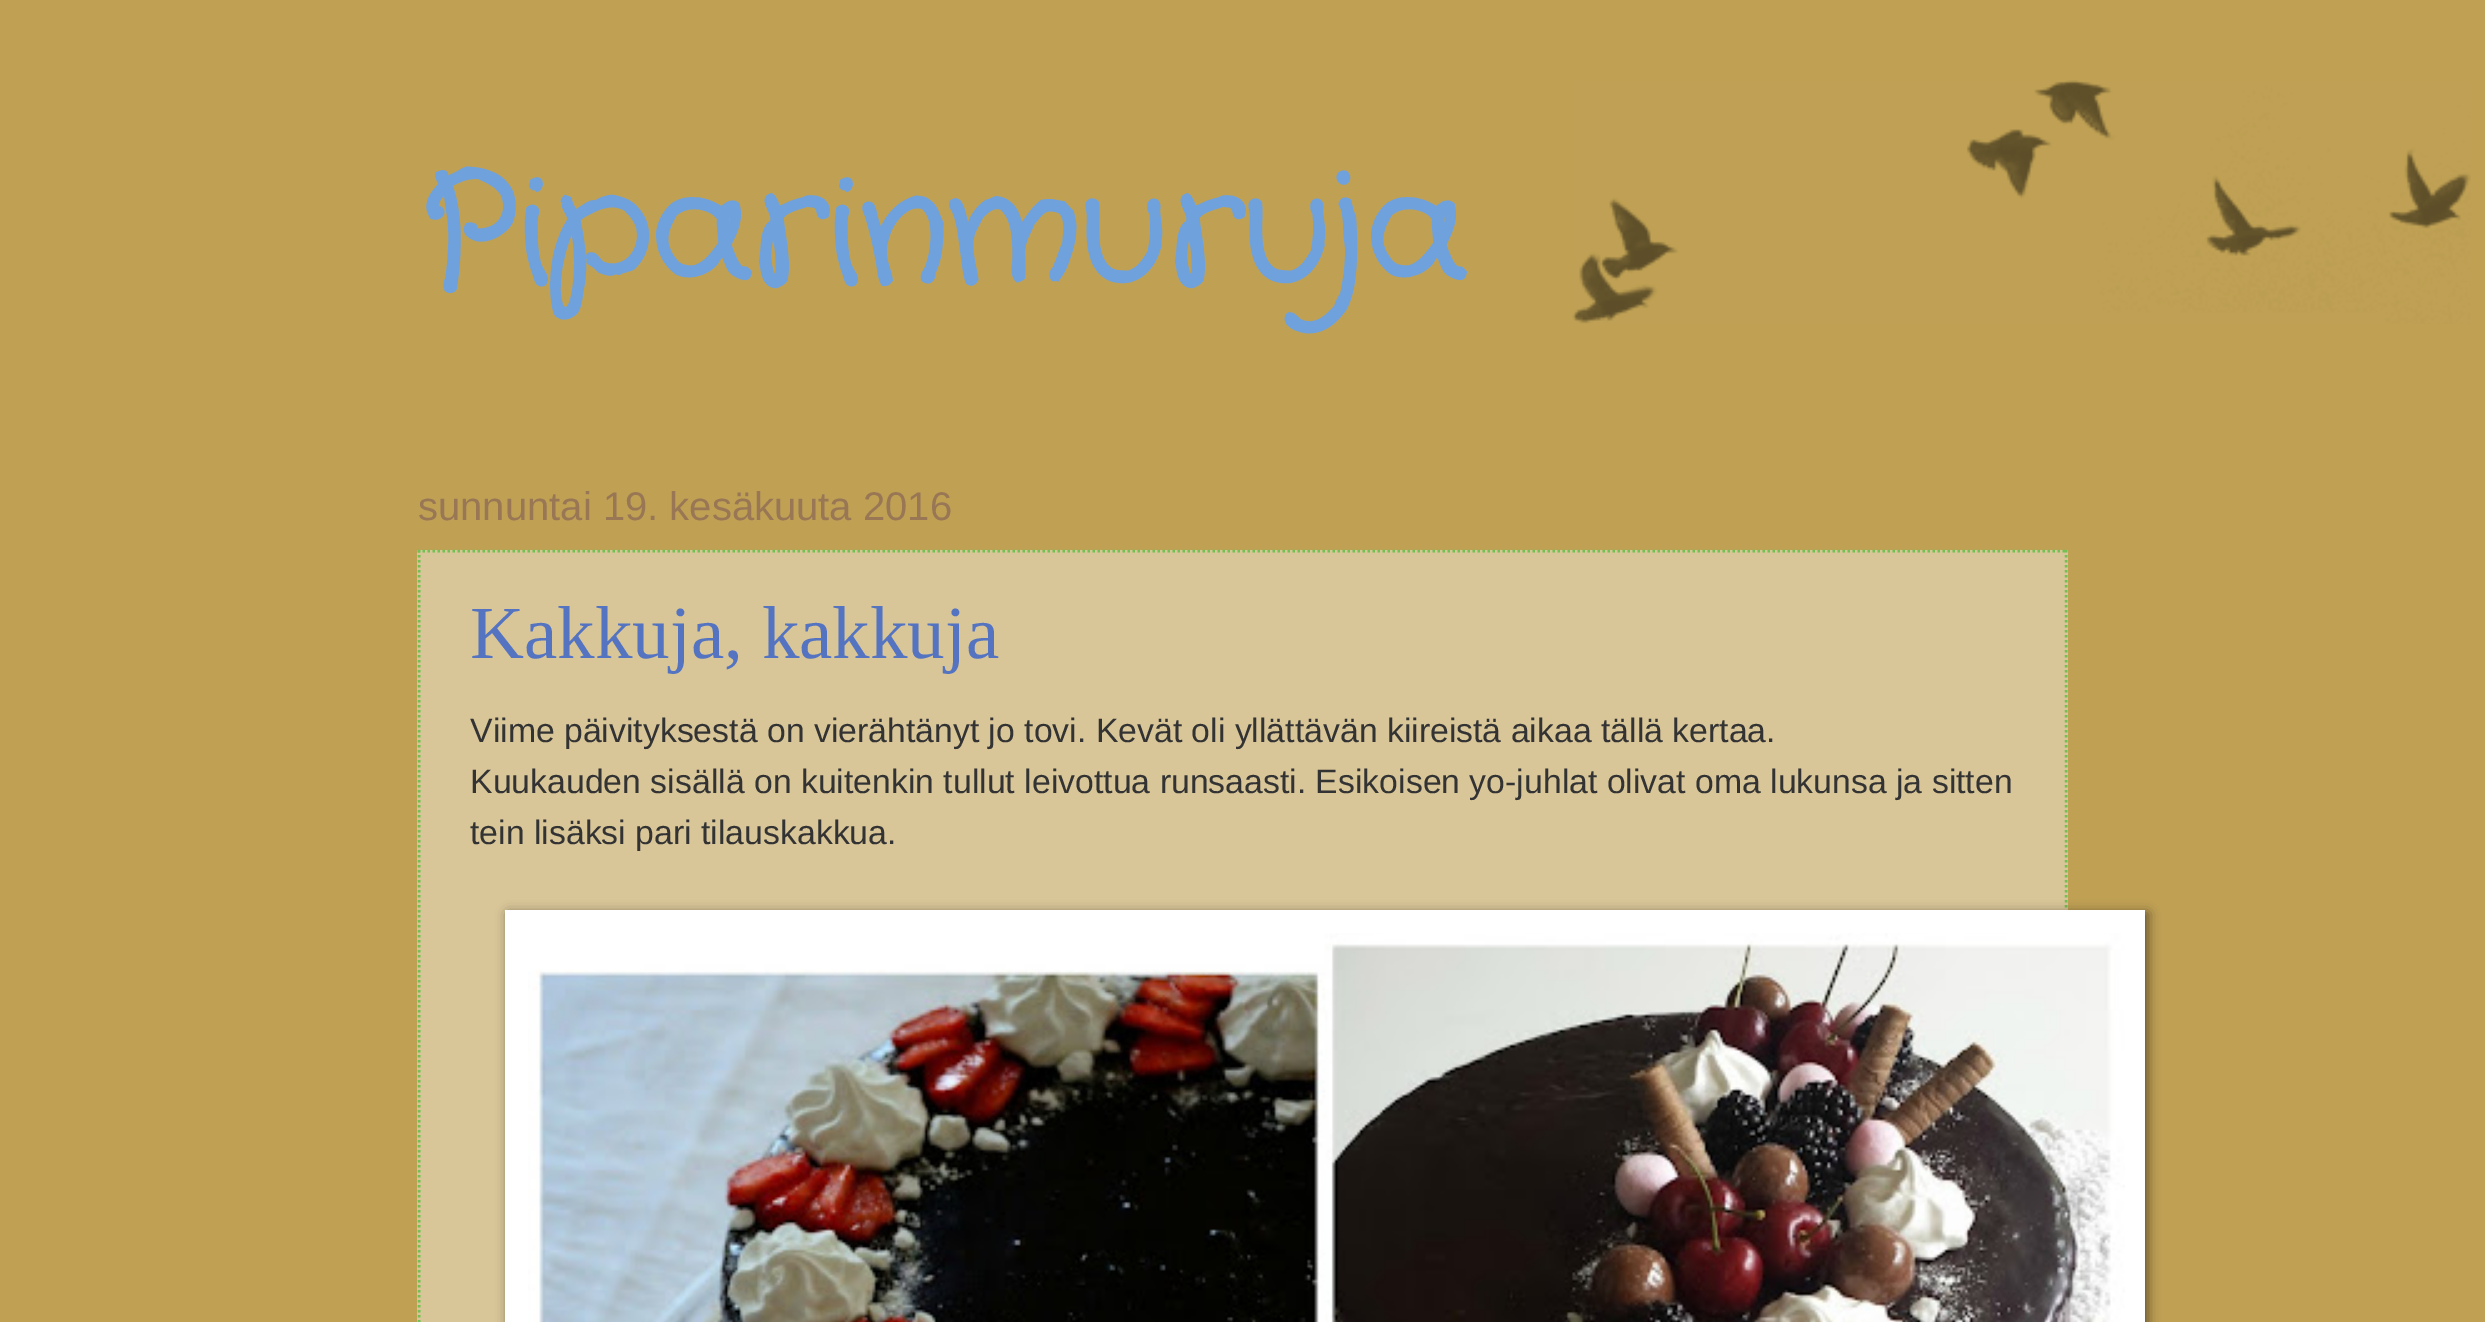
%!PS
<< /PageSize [2485 1322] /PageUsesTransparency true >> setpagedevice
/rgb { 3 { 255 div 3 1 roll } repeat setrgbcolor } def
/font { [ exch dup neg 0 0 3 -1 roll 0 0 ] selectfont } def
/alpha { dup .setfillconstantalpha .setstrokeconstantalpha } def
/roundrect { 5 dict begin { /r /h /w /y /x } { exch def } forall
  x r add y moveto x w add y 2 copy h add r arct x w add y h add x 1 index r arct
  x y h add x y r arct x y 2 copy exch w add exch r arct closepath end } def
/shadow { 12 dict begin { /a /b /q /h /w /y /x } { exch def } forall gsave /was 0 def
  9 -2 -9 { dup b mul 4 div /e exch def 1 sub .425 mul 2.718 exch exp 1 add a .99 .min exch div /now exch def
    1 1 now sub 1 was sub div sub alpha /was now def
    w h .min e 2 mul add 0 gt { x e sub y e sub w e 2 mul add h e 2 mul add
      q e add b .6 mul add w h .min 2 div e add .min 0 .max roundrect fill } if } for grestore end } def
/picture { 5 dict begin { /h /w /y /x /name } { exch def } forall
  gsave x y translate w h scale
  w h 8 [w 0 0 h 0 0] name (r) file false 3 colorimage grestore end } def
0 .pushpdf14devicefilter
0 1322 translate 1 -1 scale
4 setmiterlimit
192 161 84 rgb
0 0 2485 1322 rectfill
217 198 152 rgb
417 550 1651 772 rectfill
115 192 84 rgb
2.5 setlinewidth
[2.5 2.5] 0 setdash
417.5 551 moveto 2067.5 551 lineto stroke
2066 550 moveto 2066 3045 lineto stroke
419 550 moveto 419 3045 lineto stroke
0 0 0 rgb
508 913 1640 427 0 6 0.5 shadow
255 255 255 rgb
505 910 1640 412 rectfill
(img/1.rgb) 528 933 1597 389 picture
(img/2.rgb) 1572 80 899 244 picture
/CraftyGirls-Bold 150 font
111 161 220 rgb
418 278 moveto (Piparinmuruja) show
/LiberationSans-Regular 40 font
153 119 85 rgb
418 520 moveto (sunnuntai 19. kesäkuuta 2016) show
/LiberationSerif-Regular 75 font
84 115 192 rgb
470 658 moveto (Kakkuja, kakkuja) show
/LiberationSans-Regular 33.8 font
51 51 51 rgb
[
  [(Viime päivityksestä on vierähtänyt jo tovi. Kevät oli yllättävän kiireistä aikaa tällä kertaa.) 470 742]
  [(Kuukauden sisällä on kuitenkin tullut leivottua runsaasti. Esikoisen yo-juhlat olivat oma lukunsa ja sitten) 470 793]
  [(tein lisäksi pari tilauskakkua.) 470 844]
] { aload pop moveto show } forall
.poppdf14devicefilter showpage
